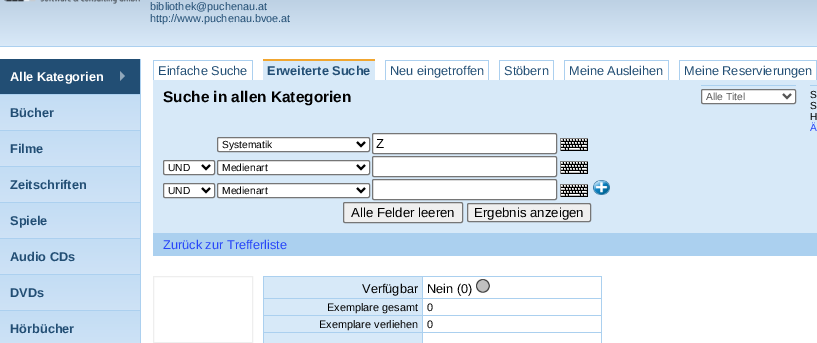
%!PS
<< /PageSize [817 343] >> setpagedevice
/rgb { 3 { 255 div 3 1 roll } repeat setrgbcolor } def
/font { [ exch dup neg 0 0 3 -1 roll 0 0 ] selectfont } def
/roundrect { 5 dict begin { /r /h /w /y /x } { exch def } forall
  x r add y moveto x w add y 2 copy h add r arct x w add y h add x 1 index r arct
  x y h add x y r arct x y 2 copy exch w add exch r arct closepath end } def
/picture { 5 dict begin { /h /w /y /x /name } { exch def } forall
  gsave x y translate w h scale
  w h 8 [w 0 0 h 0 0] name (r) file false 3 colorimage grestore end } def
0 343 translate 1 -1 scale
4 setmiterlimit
255 255 255 rgb
0 0 817 343 rectfill
gsave 0 0 moveto 817 0 lineto 817 46 lineto 0 46 lineto closepath clip newpath
<< /ShadingType 2 /ColorSpace /DeviceRGB /Coords [409 -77 409 46] /Extend [true true] /Function << /FunctionType 2 /Domain [0 1] /C0 [0.561 0.663 0.761] /C1 [0.851 0.914 0.973] /N 1 >> >> shfill grestore
172 208 239 rgb
0 46 817 1 rectfill
(img/1.rgb) 4 0 136 4 picture
[
  [0 59 140 35 34 78 116]
  [140 59 1 284 172 208 239]
  [0 94 141 1 172 208 239]
] { aload pop rgb rectfill } forall
145 167 186 rgb
120 81 moveto 120 71 lineto 125 76 lineto closepath fill
gsave 0 95 moveto 140 95 lineto 140 130 lineto 0 130 lineto closepath clip newpath
<< /ShadingType 2 /ColorSpace /DeviceRGB /Coords [70 95 70 130] /Extend [true true] /Function << /FunctionType 2 /Domain [0 1] /C0 [0.765 0.867 0.957] /C1 [0.808 0.886 0.965] /N 1 >> >> shfill grestore
172 208 239 rgb
0 130 141 1 rectfill
gsave 0 131 moveto 140 131 lineto 140 166 lineto 0 166 lineto closepath clip newpath
<< /ShadingType 2 /ColorSpace /DeviceRGB /Coords [70 131 70 166] /Extend [true true] /Function << /FunctionType 2 /Domain [0 1] /C0 [0.765 0.867 0.957] /C1 [0.808 0.886 0.965] /N 1 >> >> shfill grestore
0 166 141 1 rectfill
gsave 0 167 moveto 140 167 lineto 140 202 lineto 0 202 lineto closepath clip newpath
<< /ShadingType 2 /ColorSpace /DeviceRGB /Coords [70 167 70 202] /Extend [true true] /Function << /FunctionType 2 /Domain [0 1] /C0 [0.765 0.867 0.957] /C1 [0.808 0.886 0.965] /N 1 >> >> shfill grestore
0 202 141 1 rectfill
gsave 0 203 moveto 140 203 lineto 140 238 lineto 0 238 lineto closepath clip newpath
<< /ShadingType 2 /ColorSpace /DeviceRGB /Coords [70 203 70 238] /Extend [true true] /Function << /FunctionType 2 /Domain [0 1] /C0 [0.765 0.867 0.957] /C1 [0.808 0.886 0.965] /N 1 >> >> shfill grestore
0 238 141 1 rectfill
gsave 0 239 moveto 140 239 lineto 140 274 lineto 0 274 lineto closepath clip newpath
<< /ShadingType 2 /ColorSpace /DeviceRGB /Coords [70 239 70 274] /Extend [true true] /Function << /FunctionType 2 /Domain [0 1] /C0 [0.765 0.867 0.957] /C1 [0.808 0.886 0.965] /N 1 >> >> shfill grestore
0 274 141 1 rectfill
gsave 0 275 moveto 140 275 lineto 140 310 lineto 0 310 lineto closepath clip newpath
<< /ShadingType 2 /ColorSpace /DeviceRGB /Coords [70 275 70 310] /Extend [true true] /Function << /FunctionType 2 /Domain [0 1] /C0 [0.765 0.867 0.957] /C1 [0.808 0.886 0.965] /N 1 >> >> shfill grestore
0 310 141 1 rectfill
gsave 0 311 moveto 140 311 lineto 140 343 lineto 0 343 lineto closepath clip newpath
<< /ShadingType 2 /ColorSpace /DeviceRGB /Coords [70 311 70 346] /Extend [true true] /Function << /FunctionType 2 /Domain [0 1] /C0 [0.765 0.867 0.957] /C1 [0.808 0.886 0.965] /N 1 >> >> shfill grestore
[
  [153 60 100 1 172 208 239]
  [252 60 1 20 172 208 239]
  [153 60 1 20 172 208 239]
  [263 61 112 19 215 233 248]
  [263 59 112 2 241 166 48]
  [385 60 104 1 172 208 239]
  [488 60 1 20 172 208 239]
  [385 60 1 20 172 208 239]
  [499 60 55 1 172 208 239]
  [553 60 1 20 172 208 239]
  [499 60 1 20 172 208 239]
  [564 60 105 1 172 208 239]
  [668 60 1 20 172 208 239]
  [564 60 1 20 172 208 239]
  [679 60 138 1 172 208 239]
  [816 60 1 20 172 208 239]
  [679 60 1 20 172 208 239]
  [153 80 664 153 215 233 248]
  [701 85 95 1 171 208 239]
] { aload pop rgb rectfill } forall
255 255 255 rgb
701.5 89.5 94 14 1.5 roundrect gsave fill grestore
118 118 118 rgb
stroke
85 85 85 rgb
2 setlinewidth
783 94 moveto 787 98 lineto 791 94 lineto stroke
171 208 239 rgb
810 85 7 1 rectfill
255 255 255 rgb
217.5 137.5 152 14 1.5 roundrect gsave fill grestore
118 118 118 rgb
1 setlinewidth
stroke
0 0 0 rgb
2 setlinewidth
357 142 moveto 361 146 lineto 365 142 lineto stroke
255 255 255 rgb
372.5 133.5 184 20 1.5 roundrect gsave fill grestore
118 118 118 rgb
1 setlinewidth
stroke
(img/2.rgb) 560 138 28 13 picture
255 255 255 rgb
163.5 160.5 51 14 1.5 roundrect gsave fill grestore
118 118 118 rgb
stroke
0 0 0 rgb
2 setlinewidth
202 165 moveto 206 169 lineto 210 165 lineto stroke
255 255 255 rgb
217.5 160.5 152 14 1.5 roundrect gsave fill grestore
118 118 118 rgb
1 setlinewidth
stroke
0 0 0 rgb
2 setlinewidth
357 165 moveto 361 169 lineto 365 165 lineto stroke
255 255 255 rgb
372.5 156.5 184 20 1.5 roundrect gsave fill grestore
118 118 118 rgb
1 setlinewidth
stroke
(img/2.rgb) 560 161 28 13 picture
255 255 255 rgb
163.5 183.5 51 14 1.5 roundrect gsave fill grestore
118 118 118 rgb
stroke
0 0 0 rgb
2 setlinewidth
202 188 moveto 206 192 lineto 210 188 lineto stroke
255 255 255 rgb
217.5 183.5 152 14 1.5 roundrect gsave fill grestore
118 118 118 rgb
1 setlinewidth
stroke
0 0 0 rgb
2 setlinewidth
357 188 moveto 361 192 lineto 365 188 lineto stroke
255 255 255 rgb
372.5 179.5 184 20 1.5 roundrect gsave fill grestore
118 118 118 rgb
1 setlinewidth
stroke
(img/2.rgb) 560 184 28 13 picture
(img/3.rgb) 593 180 17 15 picture
239 239 239 rgb
343.5 202.5 119 20 1.5 roundrect gsave fill grestore
118 118 118 rgb
stroke
239 239 239 rgb
467.5 203.5 123 18 1.5 roundrect gsave fill grestore
118 118 118 rgb
stroke
171 208 239 rgb
153 233 664 23 rectfill
238 238 238 rgb
153.5 276.5 99 66 rectstroke
[
  [264 277 158 21 215 233 248]
  [422 276 180 1 171 208 239]
  [422 298 180 1 171 208 239]
  [422 315 180 1 171 208 239]
  [422 332 180 1 171 208 239]
  [422 332 1 11 171 208 239]
  [263 332 160 1 171 208 239]
  [422 315 1 18 171 208 239]
  [263 315 160 1 171 208 239]
  [422 298 1 18 171 208 239]
  [263 298 160 1 171 208 239]
  [422 276 1 23 171 208 239]
  [263 276 160 1 171 208 239]
  [263 332 1 11 171 208 239]
  [263 315 1 18 171 208 239]
  [263 298 1 18 171 208 239]
  [263 276 1 23 171 208 239]
  [601 332 1 11 171 208 239]
  [601 315 1 18 171 208 239]
  [601 298 1 18 171 208 239]
  [601 276 1 23 171 208 239]
] { aload pop rgb rectfill } forall
(img/4.rgb) 476 279 14 14 picture
[
  [264 299 158 16 215 233 248]
  [264 316 158 16 215 233 248]
  [264 333 158 10 215 233 248]
] { aload pop rgb rectfill } forall
/LiberationSans-Regular 10.9 font
34 78 116 rgb
150 10 moveto (bibliothek@puchenau.at) show
150 22 moveto (http://www.puchenau.bvoe.at) show
/LiberationSans-Bold 12.75 font
255 255 255 rgb
10 81 moveto (Alle Kategorien) show
34 78 116 rgb
[
  [(Bücher) 10 117]
  [(Filme) 10 153]
  [(Zeitschriften) 10 189]
  [(Spiele) 10 225]
  [(Audio CDs) 10 261]
  [(DVDs) 10 297]
  [(Hörbücher) 10 333]
] { aload pop moveto show } forall
/LiberationSans-Regular 12.75 font
158 75 moveto (Einfache Suche) show
/LiberationSans-Bold 12.75 font
267 75 moveto (Erweiterte Suche) show
/LiberationSans-Regular 12.75 font
[
  [(Neu eingetroffen) 390 75]
  [(Stöbern) 504 75]
  [(Meine Ausleihen) 569 75]
  [(Meine Reservierungen) 684 75]
] { aload pop moveto show } forall
/LiberationSans-Bold 15.4 font
0 0 0 rgb
163 102 moveto (Suche in allen Kategorien) show
/LiberationSans-Regular 10.25 font
85 85 85 rgb
706 100 moveto (Alle Titel) show
0 0 0 rgb
[
  [(S) 810 98]
  [(S) 810 109]
  [(H) 810 120]
] { aload pop moveto show } forall
39 69 249 rgb
810 131 moveto (Ä) show
0 0 0 rgb
222 148 moveto (Systematik) show
/LiberationSans-Regular 13.25 font
376 148 moveto (Z) show
/LiberationSans-Regular 10.25 font
[
  [(UND) 168 171]
  [(Medienart) 222 171]
  [(UND) 168 194]
  [(Medienart) 222 194]
] { aload pop moveto show } forall
/LiberationSans-Regular 13.25 font
351 217 moveto (Alle Felder leeren) show
474 217 moveto (Ergebnis anzeigen) show
/LiberationSans-Regular 12.75 font
39 69 249 rgb
163 249 moveto (Zurück zur Trefferliste) show
0 0 0 rgb
362 293 moveto (Verfügbar) show
427 293 moveto (Nein \(0\)) show
/LiberationSans-Regular 10.9 font
[
  [(Exemplare gesamt) 327 311]
  [(0) 427 311]
  [(Exemplare verliehen) 319 328]
  [(0) 427 328]
] { aload pop moveto show } forall
showpage
